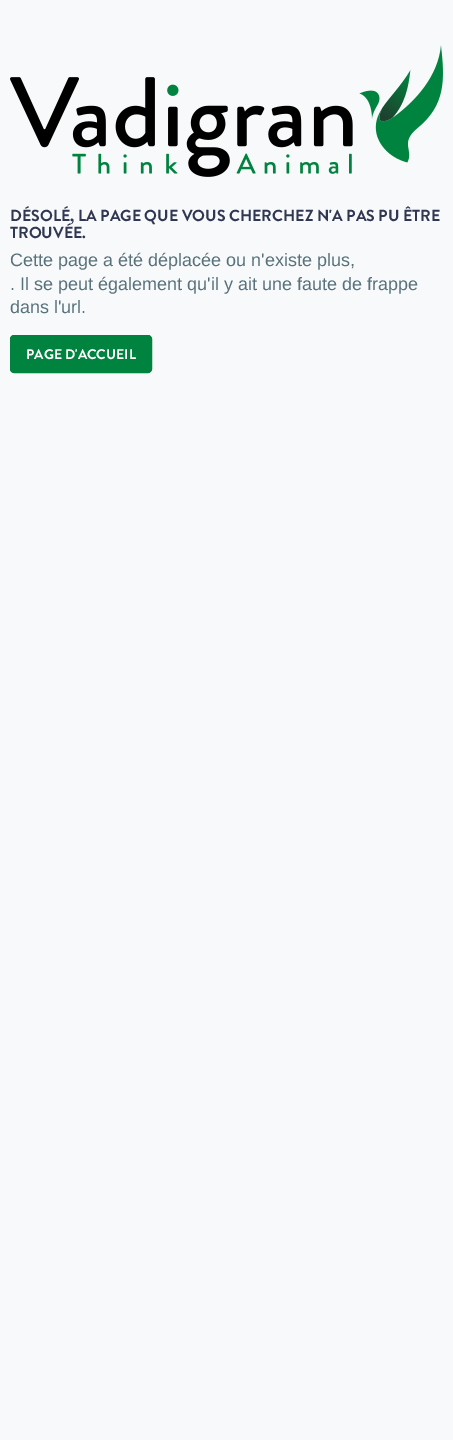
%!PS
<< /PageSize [453 1440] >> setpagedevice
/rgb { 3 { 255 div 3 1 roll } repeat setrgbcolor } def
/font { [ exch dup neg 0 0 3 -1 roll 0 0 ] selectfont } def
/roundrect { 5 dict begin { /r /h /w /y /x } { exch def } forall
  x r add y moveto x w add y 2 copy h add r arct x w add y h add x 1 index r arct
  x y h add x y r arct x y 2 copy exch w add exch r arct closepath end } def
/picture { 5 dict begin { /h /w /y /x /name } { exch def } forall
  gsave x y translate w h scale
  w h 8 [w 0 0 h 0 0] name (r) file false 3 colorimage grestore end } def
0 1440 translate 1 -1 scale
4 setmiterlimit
248 249 250 rgb
0 0 453 1440 rectfill
(img/1.rgb) 10 45 433 132 picture
0 131 62 rgb
10.5 335.5 141 37 3.5 roundrect gsave fill grestore
stroke
/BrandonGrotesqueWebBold-Regular 16 font
47 55 82 rgb
10 221 moveto (DÉSOLÉ, LA PAGE QUE VOUS CHERCHEZ N'A PAS PU ÊTRE) show
10 238 moveto (TROUVÉE.) show
/LiberationSans-Regular 18 font
87 114 123 rgb
[
  [(Cette page a été déplacée ou n'existe plus,) 10 266]
  [(. Il se peut également qu'il y ait une faute de frappe) 10 290]
  [(dans l'url.) 10 313]
] { aload pop moveto show } forall
/BrandonGrotesqueWebBold-Regular 14 font
255 255 255 rgb
26 359 moveto (PAGE D'ACCUEIL) show
showpage
